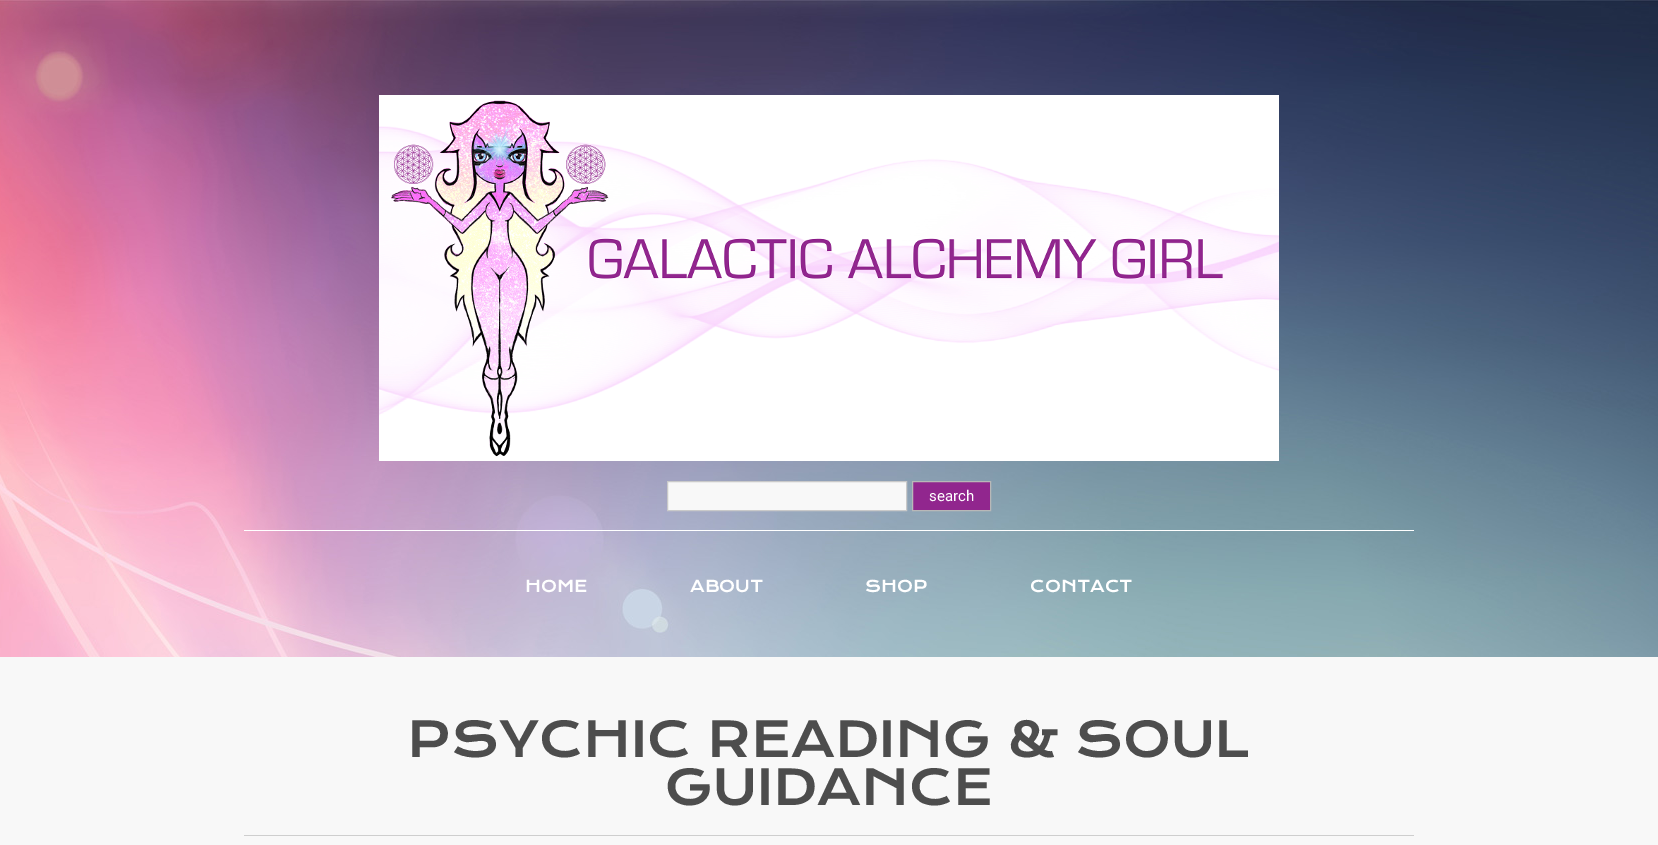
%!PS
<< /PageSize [1658 845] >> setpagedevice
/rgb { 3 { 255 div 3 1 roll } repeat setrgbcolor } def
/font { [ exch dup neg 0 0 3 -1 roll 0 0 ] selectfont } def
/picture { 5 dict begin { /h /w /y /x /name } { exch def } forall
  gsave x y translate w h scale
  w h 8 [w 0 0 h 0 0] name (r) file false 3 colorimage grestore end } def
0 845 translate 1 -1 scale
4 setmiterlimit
248 248 248 rgb
0 0 1658 845 rectfill
(img/1.rgb) 0 0 1658 657 picture
(img/2.rgb) 379 95 900 366 picture
667.5 481.5 moveto 906.5 481.5 lineto 906.5 510.5 lineto 667.5 510.5 lineto closepath gsave fill grestore
201 201 201 rgb
stroke
145 38 142 rgb
912.5 481.5 moveto 990.5 481.5 lineto 990.5 510.5 lineto 912.5 510.5 lineto closepath gsave fill grestore
184 184 184 rgb
stroke
255 255 255 rgb
244 530 1170 1 rectfill
206 206 206 rgb
244 835 1170 1 rectfill
/Roboto-Regular 15 font
255 255 255 rgb
929 501 moveto (search) show
/KronaOne-Regular 16 font
[
  [(HOME) 525 592]
  [(ABOUT) 690 592]
  [(SHOP) 865 592]
  [(CONTACT) 1030 592]
] { aload pop moveto show } forall
/KronaOne-Regular 48 font
77 77 77 rgb
407 757 moveto (PSYCHIC READING & SOUL) show
665 805 moveto (GUIDANCE) show
showpage
